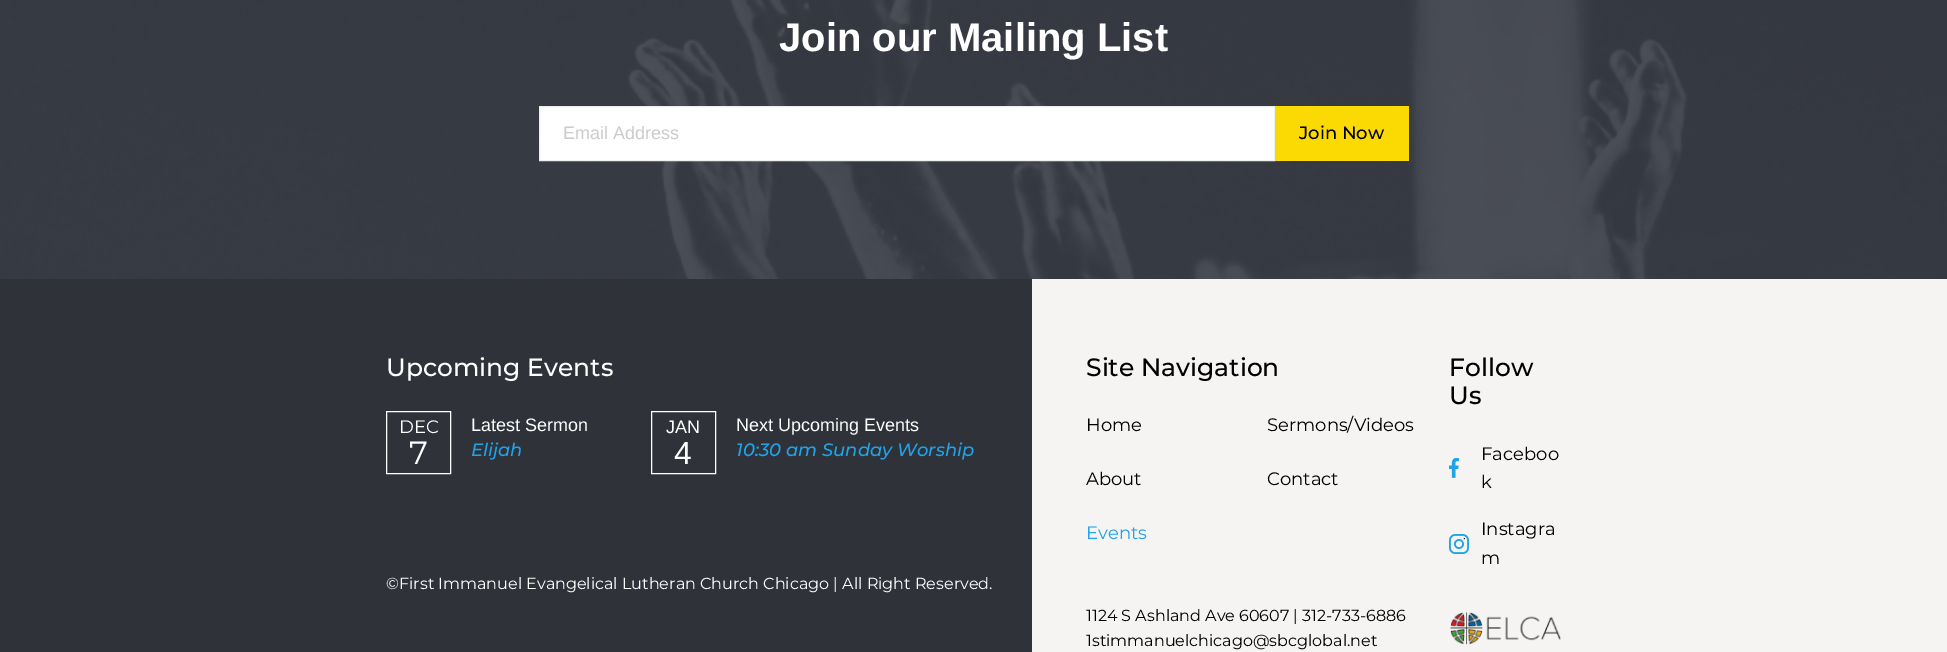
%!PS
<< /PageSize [1947 652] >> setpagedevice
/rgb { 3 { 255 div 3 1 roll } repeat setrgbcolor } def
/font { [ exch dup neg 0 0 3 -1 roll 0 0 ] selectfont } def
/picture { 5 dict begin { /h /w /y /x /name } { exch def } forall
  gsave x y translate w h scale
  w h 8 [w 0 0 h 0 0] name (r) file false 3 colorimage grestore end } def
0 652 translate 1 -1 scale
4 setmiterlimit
47 50 57 rgb
0 0 1947 652 rectfill
(img/1.rgb) 0 0 1947 279 picture
255 255 255 rgb
539.5 106.5 moveto 1274.5 106.5 lineto 1274.5 160.5 lineto 539.5 160.5 lineto closepath gsave fill grestore
239 239 239 rgb
stroke
251 218 3 rgb
1275 106 134 55 rectfill
245 244 243 rgb
1032 279 915 373 rectfill
255 255 255 rgb
386.5 411.5 64 62 rectstroke
651.5 411.5 64 62 rectstroke
(img/2.rgb) 1449 458 10 20 picture
(img/3.rgb) 1449 534 20 20 picture
(img/4.rgb) 1450 612 111 33 picture
/LiberationSans-Bold 40 font
779 51 moveto (Join our Mailing List) show
/LiberationSans-Regular 18 font
203 203 203 rgb
563 139 moveto (Email Address) show
/Montserrat-Medium 18 font
0 0 0 rgb
1299 139 moveto (Join Now) show
/Montserrat-Medium 25 font
255 255 255 rgb
386 376 moveto (Upcoming Events) show
/Montserrat-Regular 18 font
399 433 moveto (DEC) show
/Montserrat-Regular 32 font
409 464 moveto (7) show
/LiberationSans-Regular 18 font
471 431 moveto (Latest Sermon) show
/Montserrat-MediumItalic 18 font
31 163 233 rgb
471 456 moveto (Elijah) show
/LiberationSans-Regular 18 font
255 255 255 rgb
666 433 moveto (JAN) show
/LiberationSans-Regular 32 font
674 464 moveto (4) show
/LiberationSans-Regular 18 font
736 431 moveto (Next Upcoming Events) show
/Montserrat-MediumItalic 18 font
31 163 233 rgb
736 456 moveto (10:30 am Sunday Worship) show
/Montserrat-Regular 16 font
255 255 255 rgb
386 589 moveto (©First Immanuel Evangelical Lutheran Church Chicago | All Right Reserved.) show
/Montserrat-Medium 25 font
0 0 0 rgb
1086 376 moveto (Site Navigation) show
/Montserrat-Regular 18 font
1086 431 moveto (Home) show
1086 485 moveto (About) show
31 163 233 rgb
1086 539 moveto (Events) show
0 0 0 rgb
1267 431 moveto (Sermons/Videos) show
1267 485 moveto (Contact) show
/Montserrat-Medium 25 font
1449 376 moveto (Follow) show
1449 404 moveto (Us) show
/Montserrat-Regular 18 font
[
  [(Faceboo) 1481 460]
  [(k) 1481 488]
  [(Instagra) 1481 535]
  [(m) 1481 564]
] { aload pop moveto show } forall
/Montserrat-Regular 16 font
1086 621 moveto (1124 S Ashland Ave 60607 | 312-733-6886) show
1086 646 moveto (1stimmanuelchicago@sbcglobal.net) show
showpage
